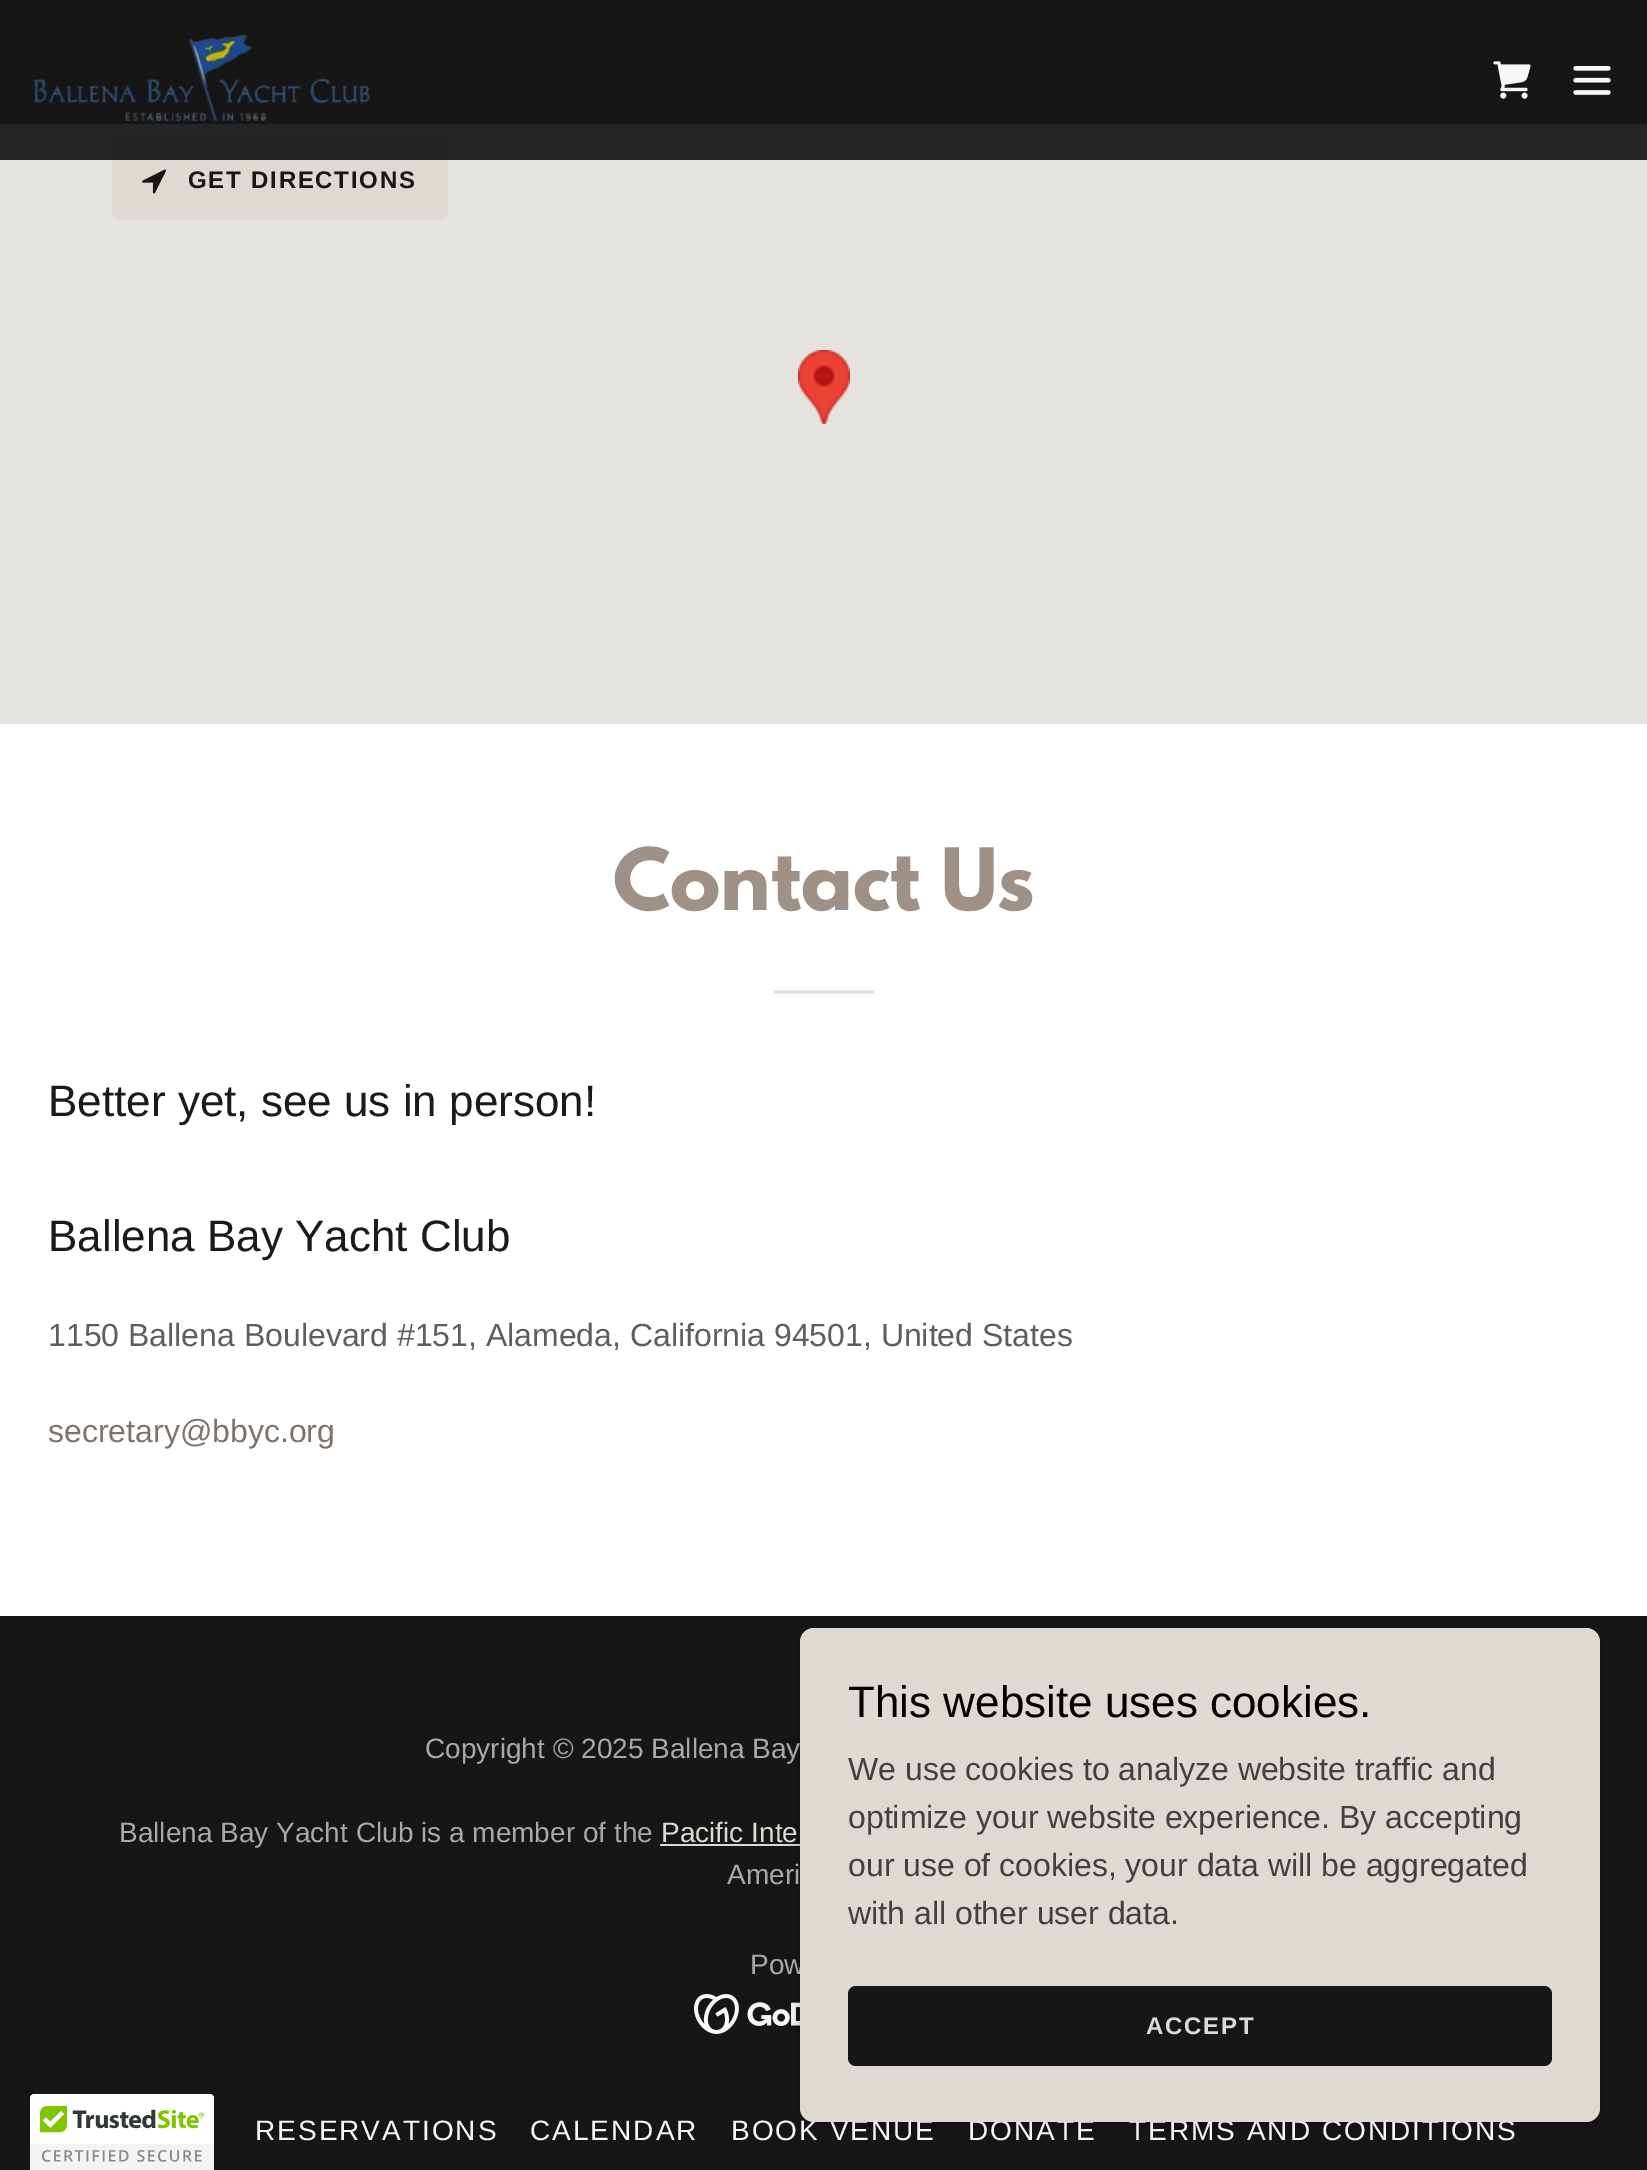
%!PS
<< /PageSize [1647 2170] /PageUsesTransparency true >> setpagedevice
/rgb { 3 { 255 div 3 1 roll } repeat setrgbcolor } def
/font { [ exch dup neg 0 0 3 -1 roll 0 0 ] selectfont } def
/alpha { dup .setfillconstantalpha .setstrokeconstantalpha } def
/roundrect { 5 dict begin { /r /h /w /y /x } { exch def } forall
  x r add y moveto x w add y 2 copy h add r arct x w add y h add x 1 index r arct
  x y h add x y r arct x y 2 copy exch w add exch r arct closepath end } def
/shadow { 12 dict begin { /a /b /q /h /w /y /x } { exch def } forall gsave /was 0 def
  9 -2 -9 { dup b mul 4 div /e exch def 1 sub .425 mul 2.718 exch exp 1 add a .99 .min exch div /now exch def
    1 1 now sub 1 was sub div sub alpha /was now def
    w h .min e 2 mul add 0 gt { x e sub y e sub w e 2 mul add h e 2 mul add
      q e add b .6 mul add w h .min 2 div e add .min 0 .max roundrect fill } if } for grestore end } def
/picture { 5 dict begin { /h /w /y /x /name } { exch def } forall
  gsave x y translate w h scale
  w h 8 [w 0 0 h 0 0] name (r) file false 3 colorimage grestore end } def
0 .pushpdf14devicefilter
0 2170 translate 1 -1 scale
4 setmiterlimit
22 22 22 rgb
0 0 1647 2170 rectfill
229 227 223 rgb
0 124 1647 600 rectfill
223 217 212 rgb
112 140 336 80 8 roundrect fill
0.9 alpha
22 22 22 rgb
0 124 1647 36 rectfill
0.25 alpha
0 124 1647 36 rectfill
1 alpha
(img/1.rgb) 33 34 338 88 picture
(img/2.rgb) 1493 61 38 38 picture
(img/3.rgb) 1573 66 38 29 picture
255 255 255 rgb
0 724 1647 892 rectfill
(img/4.rgb) 798 350 52 74 picture
(img/5.rgb) 142 169 24 25 picture
226 226 226 rgb
774 990 100 4 rectfill
223 217 212 rgb
660 1844 140 2 rectfill
(img/6.rgb) 694 1994 106 40 picture
0 0 0 rgb
800 1632 800 494 14 6 0.3 shadow
255 255 255 rgb
34 2094 moveto 210 2094 lineto 212 2094 214 2096 214 2098 curveto 214 2170 lineto 30 2170 lineto 30 2098 lineto 30 2096 32 2094 34 2094 curveto closepath fill
(img/7.rgb) 30 2094 184 76 picture
/LiberationSans-Bold 24 font
22 22 21 rgb
188 188 moveto 1.75 0 (GET DIRECTIONS) ashow
/LeagueSpartan-Bold 76 font
158 146 136 rgb
613 910 moveto (Contact Us) show
/LiberationSans-Regular 44 font
27 27 27 rgb
48 1116 moveto (Better yet, see us in person!) show
48 1251 moveto (Ballena Bay Yacht Club) show
/LiberationSans-Regular 32 font
94 94 94 rgb
48 1346 moveto (1150 Ballena Boulevard #151, Alameda, California 94501, United States) show
127 116 107 rgb
48 1442 moveto (secretary@bbyc.org) show
/LiberationSans-Regular 28 font
169 169 169 rgb
425 1758 moveto (Copyright © 2025 Ballena Bay) show
119 1842 moveto (Ballena Bay Yacht Club is a member of the) show
223 217 212 rgb
661 1842 moveto (Pacific Inte) show
169 169 169 rgb
727 1884 moveto (Ameri) show
750 1974 moveto (Pow) show
247 247 247 rgb
255 2140 moveto 2 0 (RESERVATIONS) ashow
530 2140 moveto 2 0 (CALENDAR) ashow
731 2140 moveto 2 0 (BOOK VENUE) ashow
968 2140 moveto 2 0 (DONATE) ashow
1129 2140 moveto 2 0 (TERMS AND CONDITIONS) ashow
223 217 212 rgb
800 1628 800 494 14 roundrect fill
22 22 22 rgb
848 1986 704 80 8 roundrect fill
/LiberationSans-Bold 24 font
219 219 219 rgb
1146 2034 moveto 1.75 0 (ACCEPT) ashow
/LiberationSans-Regular 32 font
65 64 62 rgb
[
  [(with all other user data.) 848 1924]
  [(our use of cookies, your data will be aggregated) 848 1876]
  [(optimize your website experience. By accepting) 848 1828]
  [(We use cookies to analyze website traffic and) 848 1780]
] { aload pop moveto show } forall
/LiberationSans-Regular 44 font
0 0 0 rgb
848 1717 moveto (This website uses cookies.) show
.poppdf14devicefilter showpage
